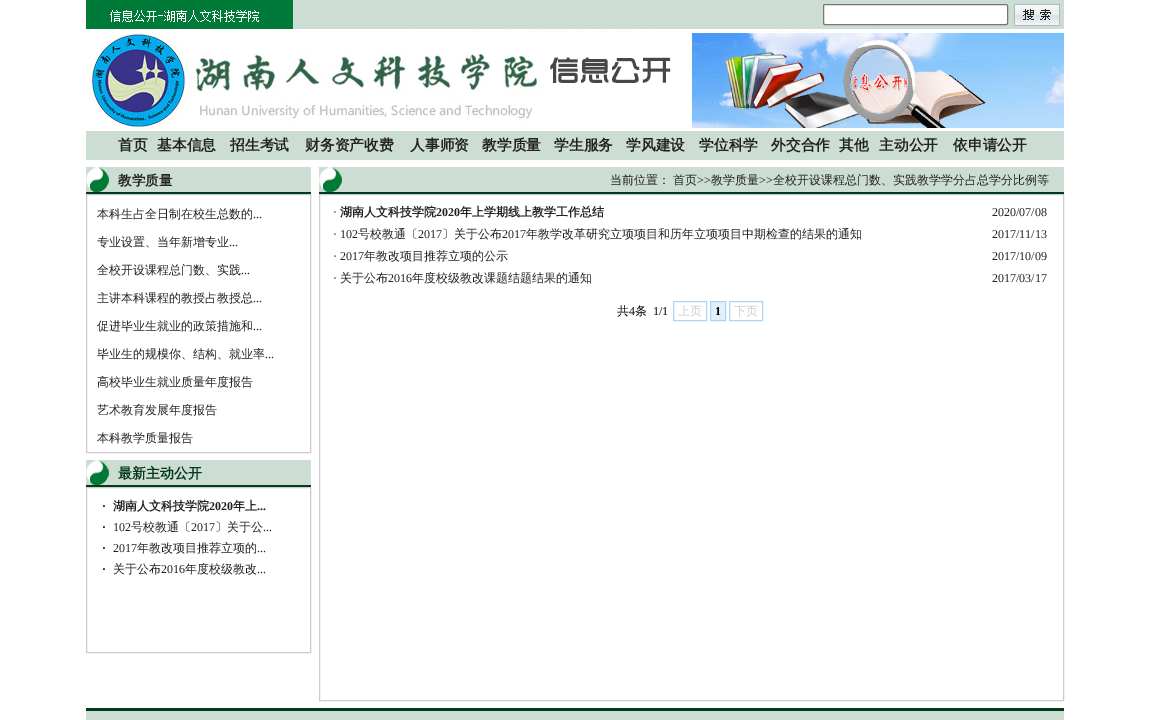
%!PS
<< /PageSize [1149 720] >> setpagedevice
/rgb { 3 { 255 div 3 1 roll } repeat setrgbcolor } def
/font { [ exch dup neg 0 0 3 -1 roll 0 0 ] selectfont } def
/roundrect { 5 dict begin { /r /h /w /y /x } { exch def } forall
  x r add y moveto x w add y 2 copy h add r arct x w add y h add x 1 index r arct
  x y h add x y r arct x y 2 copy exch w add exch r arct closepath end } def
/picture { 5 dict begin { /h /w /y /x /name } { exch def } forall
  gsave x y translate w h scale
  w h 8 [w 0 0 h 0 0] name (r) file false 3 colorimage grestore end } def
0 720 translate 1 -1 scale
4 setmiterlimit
255 255 255 rgb
0 0 1149 720 rectfill
(img/1.rgb) 86 0 978 29 picture
823.5 4.5 184 20 1.5 roundrect gsave fill grestore
118 118 118 rgb
stroke
(img/2.rgb) 1014 4 46 22 picture
(img/3.rgb) 86 29 585 98 picture
(img/4.rgb) 692 33 372 95 picture
204 221 211 rgb
86 131 978 29 rectfill
(img/5.rgb) 86 167 225 27 picture
(img/6.rgb) 86 167 23 25 picture
203 204 206 rgb
86.5 194.5 224 258 rectstroke
(img/5.rgb) 86 460 225 27 picture
(img/6.rgb) 86 460 23 25 picture
86.5 487.5 224 165 rectstroke
(img/7.rgb) 319 167 745 27 picture
(img/6.rgb) 319 167 23 25 picture
319.5 194.5 744 506 rectstroke
175 213 245 rgb
673.5 301.5 33 19 rectstroke
225 240 253 rgb
710.5 301.5 moveto 725.5 301.5 lineto 725.5 320.5 lineto 710.5 320.5 lineto closepath gsave fill grestore
175 213 245 rgb
stroke
729.5 301.5 33 19 rectstroke
(img/8.rgb) 86 708 978 12 picture
/WenQuanYiZenHei-Bold 14.75 font
34 34 34 rgb
[
  [(首页) 118 150]
  [(基本信息) 157 150]
  [(招生考试) 230 150]
  [(财务资产收费) 305 150]
  [(人事师资) 410 150]
  [(教学质量) 482 150]
  [(学生服务) 554 150]
  [(学风建设) 626 150]
  [(学位科学) 699 150]
  [(外交合作) 771 150]
  [(其他) 839 150]
  [(主动公开) 879 150]
  [(依申请公开) 953 150]
] { aload pop moveto show } forall
/WenQuanYiZenHei-Bold 13.5 font
118 185 moveto (教学质量) show
/WenQuanYiZenHei-Medium 12 font
97 218 moveto (本科生占全日制在校生总数的) show
/LiberationSerif-Regular 12 font
253 218 moveto (...) show
/WenQuanYiZenHei-Medium 12 font
97 246 moveto (专业设置、当年新增专业) show
/LiberationSerif-Regular 12 font
229 246 moveto (...) show
/WenQuanYiZenHei-Medium 12 font
97 274 moveto (全校开设课程总门数、实践) show
/LiberationSerif-Regular 12 font
241 274 moveto (...) show
/WenQuanYiZenHei-Medium 12 font
97 302 moveto (主讲本科课程的教授占教授总) show
/LiberationSerif-Regular 12 font
253 302 moveto (...) show
/WenQuanYiZenHei-Medium 12 font
97 330 moveto (促进毕业生就业的政策措施和) show
/LiberationSerif-Regular 12 font
253 330 moveto (...) show
/WenQuanYiZenHei-Medium 12 font
97 358 moveto (毕业生的规模你、结构、就业率) show
/LiberationSerif-Regular 12 font
265 358 moveto (...) show
/WenQuanYiZenHei-Medium 12 font
[
  [(高校毕业生就业质量年度报告) 97 386]
  [(艺术教育发展年度报告) 97 414]
  [(本科教学质量报告) 97 442]
] { aload pop moveto show } forall
/WenQuanYiZenHei-Bold 14 font
6 56 29 rgb
118 478 moveto (最新主动公开) show
/LiberationSerif-Bold 12 font
0 0 0 rgb
102 510 moveto (·) show
/WenQuanYiZenHei-Bold 12 font
34 34 34 rgb
113 510 moveto (湖南人文科技学院) show
/LiberationSerif-Bold 12 font
209 510 moveto (2020) show
/WenQuanYiZenHei-Bold 12 font
233 510 moveto (年上) show
/LiberationSerif-Bold 12 font
257 510 moveto (...) show
0 0 0 rgb
102 531 moveto (·) show
/LiberationSerif-Regular 12 font
34 34 34 rgb
113 531 moveto (102) show
/WenQuanYiZenHei-Medium 12 font
131 531 moveto (号校教通〔) show
/LiberationSerif-Regular 12 font
191 531 moveto (2017) show
/WenQuanYiZenHei-Medium 12 font
215 531 moveto (〕关于公) show
/LiberationSerif-Regular 12 font
263 531 moveto (...) show
/LiberationSerif-Bold 12 font
0 0 0 rgb
102 552 moveto (·) show
/LiberationSerif-Regular 12 font
34 34 34 rgb
113 552 moveto (2017) show
/WenQuanYiZenHei-Medium 12 font
137 552 moveto (年教改项目推荐立项的) show
/LiberationSerif-Regular 12 font
257 552 moveto (...) show
/LiberationSerif-Bold 12 font
0 0 0 rgb
102 573 moveto (·) show
/WenQuanYiZenHei-Medium 12 font
34 34 34 rgb
113 573 moveto (关于公布) show
/LiberationSerif-Regular 12 font
161 573 moveto (2016) show
/WenQuanYiZenHei-Medium 12 font
185 573 moveto (年度校级教改) show
/LiberationSerif-Regular 12 font
257 573 moveto (...) show
/WenQuanYiZenHei-Medium 12 font
610 184 moveto (当前位置：) show
673 184 moveto (首页) show
/LiberationSerif-Regular 12 font
697 184 moveto (>>) show
/WenQuanYiZenHei-Medium 12 font
711 184 moveto (教学质量) show
/LiberationSerif-Regular 12 font
759 184 moveto (>>) show
/WenQuanYiZenHei-Medium 12 font
773 184 moveto (全校开设课程总门数、实践教学学分占总学分比例等) show
/LiberationSerif-Regular 12 font
333 216 moveto (·) show
/WenQuanYiZenHei-Bold 12 font
340 216 moveto (湖南人文科技学院) show
/LiberationSerif-Bold 12 font
436 216 moveto (2020) show
/WenQuanYiZenHei-Bold 12 font
460 216 moveto (年上学期线上教学工作总结) show
/LiberationSerif-Regular 12 font
992 216 moveto (2020/07/08) show
333 238 moveto (· 102) show
/WenQuanYiZenHei-Medium 12 font
358 238 moveto (号校教通〔) show
/LiberationSerif-Regular 12 font
418 238 moveto (2017) show
/WenQuanYiZenHei-Medium 12 font
442 238 moveto (〕关于公布) show
/LiberationSerif-Regular 12 font
502 238 moveto (2017) show
/WenQuanYiZenHei-Medium 12 font
526 238 moveto (年教学改革研究立项项目和历年立项项目中期检查的结果的通知) show
/LiberationSerif-Regular 12 font
992 238 moveto (2017/11/13) show
333 260 moveto (· 2017) show
/WenQuanYiZenHei-Medium 12 font
364 260 moveto (年教改项目推荐立项的公示) show
/LiberationSerif-Regular 12 font
992 260 moveto (2017/10/09) show
333 282 moveto (·) show
/WenQuanYiZenHei-Medium 12 font
340 282 moveto (关于公布) show
/LiberationSerif-Regular 12 font
388 282 moveto (2016) show
/WenQuanYiZenHei-Medium 12 font
412 282 moveto (年度校级教改课题结题结果的通知) show
/LiberationSerif-Regular 12 font
992 282 moveto (2017/03/17) show
/WenQuanYiZenHei-Medium 12 font
0 0 0 rgb
617 315 moveto (共) show
/LiberationSerif-Regular 12 font
629 315 moveto (4) show
/WenQuanYiZenHei-Medium 12 font
635 315 moveto (条) show
/LiberationSerif-Regular 12 font
653 315 moveto (1/1) show
/WenQuanYiZenHei-Medium 12 font
204 204 204 rgb
678 315 moveto (上页) show
/LiberationSerif-Bold 12 font
0 0 0 rgb
715 315 moveto (1) show
/WenQuanYiZenHei-Medium 12 font
204 204 204 rgb
734 315 moveto (下页) show
showpage
